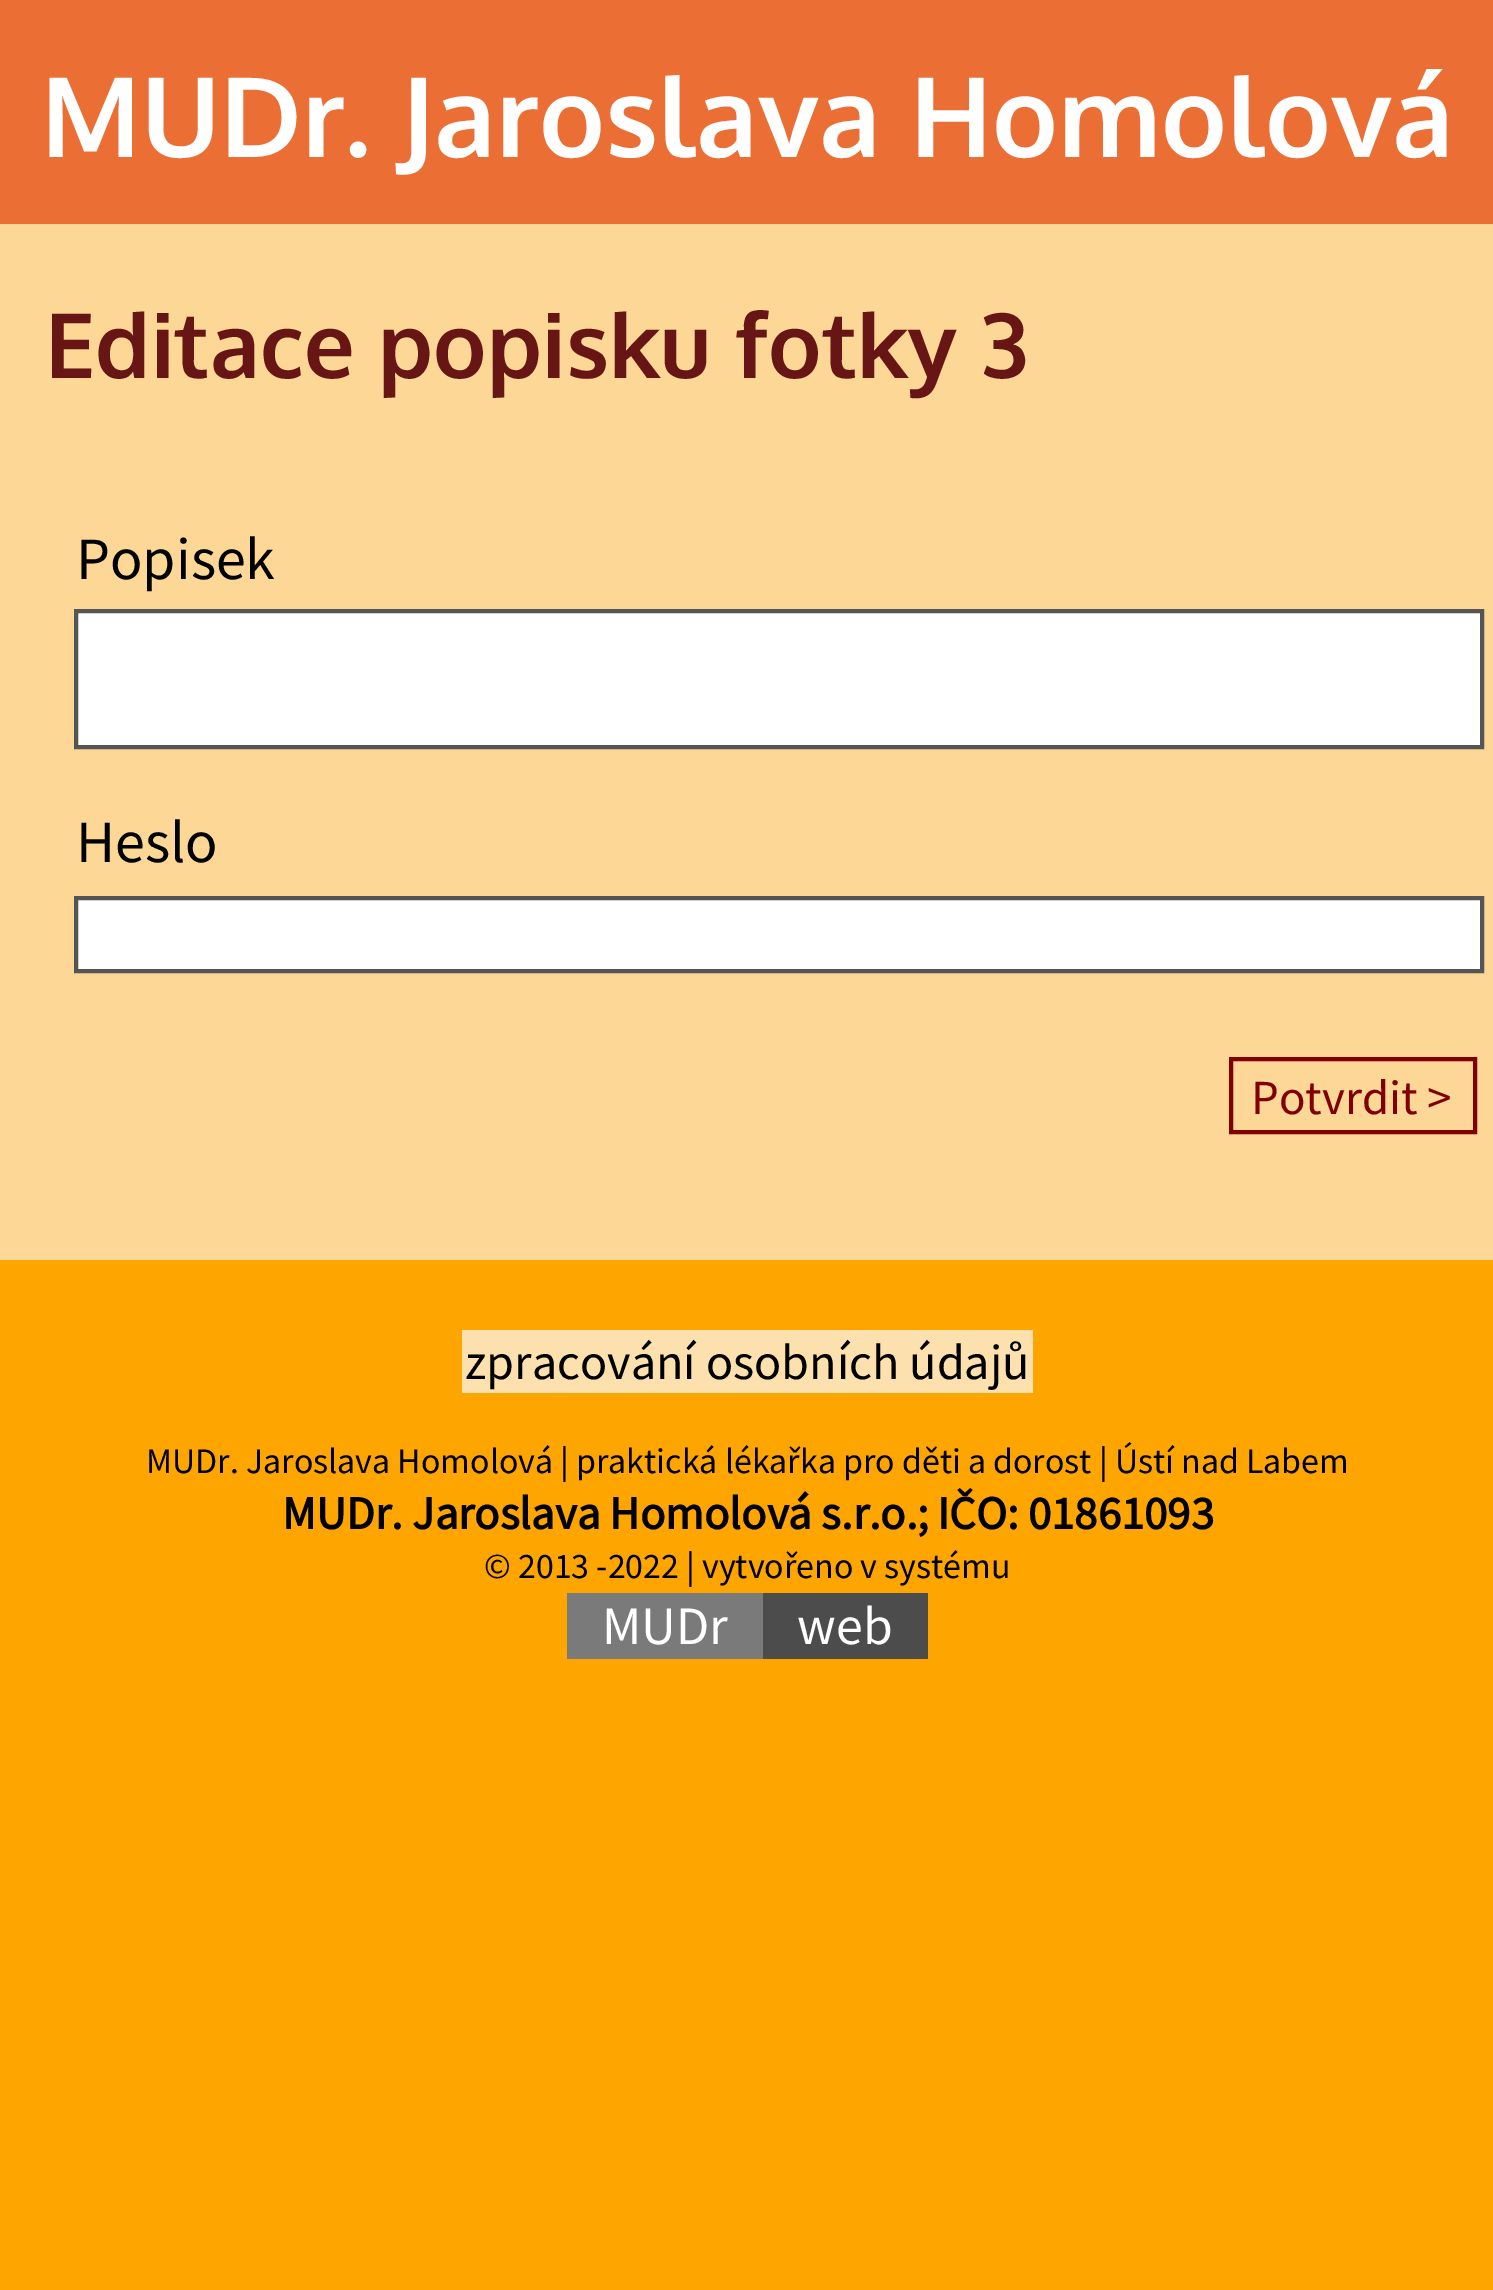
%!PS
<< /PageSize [1493 2290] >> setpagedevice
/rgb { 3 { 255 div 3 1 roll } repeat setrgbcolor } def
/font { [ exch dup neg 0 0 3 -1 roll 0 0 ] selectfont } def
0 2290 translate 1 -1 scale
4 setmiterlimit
255 165 0 rgb
0 0 1493 2290 rectfill
235 110 52 rgb
0 0 1493 224 rectfill
252 215 150 rgb
0 224 1493 1036 rectfill
255 255 255 rgb
76 611 moveto 1482 611 lineto 1482 747 lineto 76 747 lineto closepath gsave fill grestore
85 85 85 rgb
4 setlinewidth
stroke
255 255 255 rgb
76 898 moveto 1482 898 lineto 1482 971 lineto 76 971 lineto closepath gsave fill grestore
85 85 85 rgb
stroke
128 0 0 rgb
1231 1059 244 73 rectstroke
[
  [462 1330 571 63 252 225 175]
  [567 1593 196 66 122 122 122]
  [763 1593 165 66 77 76 76]
] { aload pop rgb rectfill } forall
/Oxygen-Bold 110.75 font
255 255 255 rgb
41 157 moveto (MUDr. Jaroslava Homolová) show
/Oxygen-Bold 89.75 font
103 21 21 rgb
45 378 moveto (Editace popisku fotky 3) show
/SourceSansPro-Regular 60 font
0 0 0 rgb
76 579 moveto (Popisek) show
76 862 moveto (Heslo) show
/SourceSansPro-Regular 49 font
128 0 0 rgb
1251 1114 moveto (Potvrdit >) show
/SourceSansPro-Regular 50.25 font
0 0 0 rgb
465 1379 moveto (zpracování osobních údajů) show
/SourceSansPro-Regular 35.9 font
146 1473 moveto (MUDr. Jaroslava Homolová | praktická lékařka pro děti a dorost | Ústí nad Labem) show
/SourceSansPro-Bold 46.75 font
282 1529 moveto (MUDr. Jaroslava Homolová s.r.o.;) show
937 1529 moveto (IČO: 01861093) show
/SourceSansPro-Regular 35.9 font
484 1578 moveto (© 2013 -2022 | vytvořeno v systému) show
/SourceSansPro-Regular 54 font
255 255 255 rgb
602 1644 moveto (MUDr) show
797 1644 moveto (web) show
showpage
